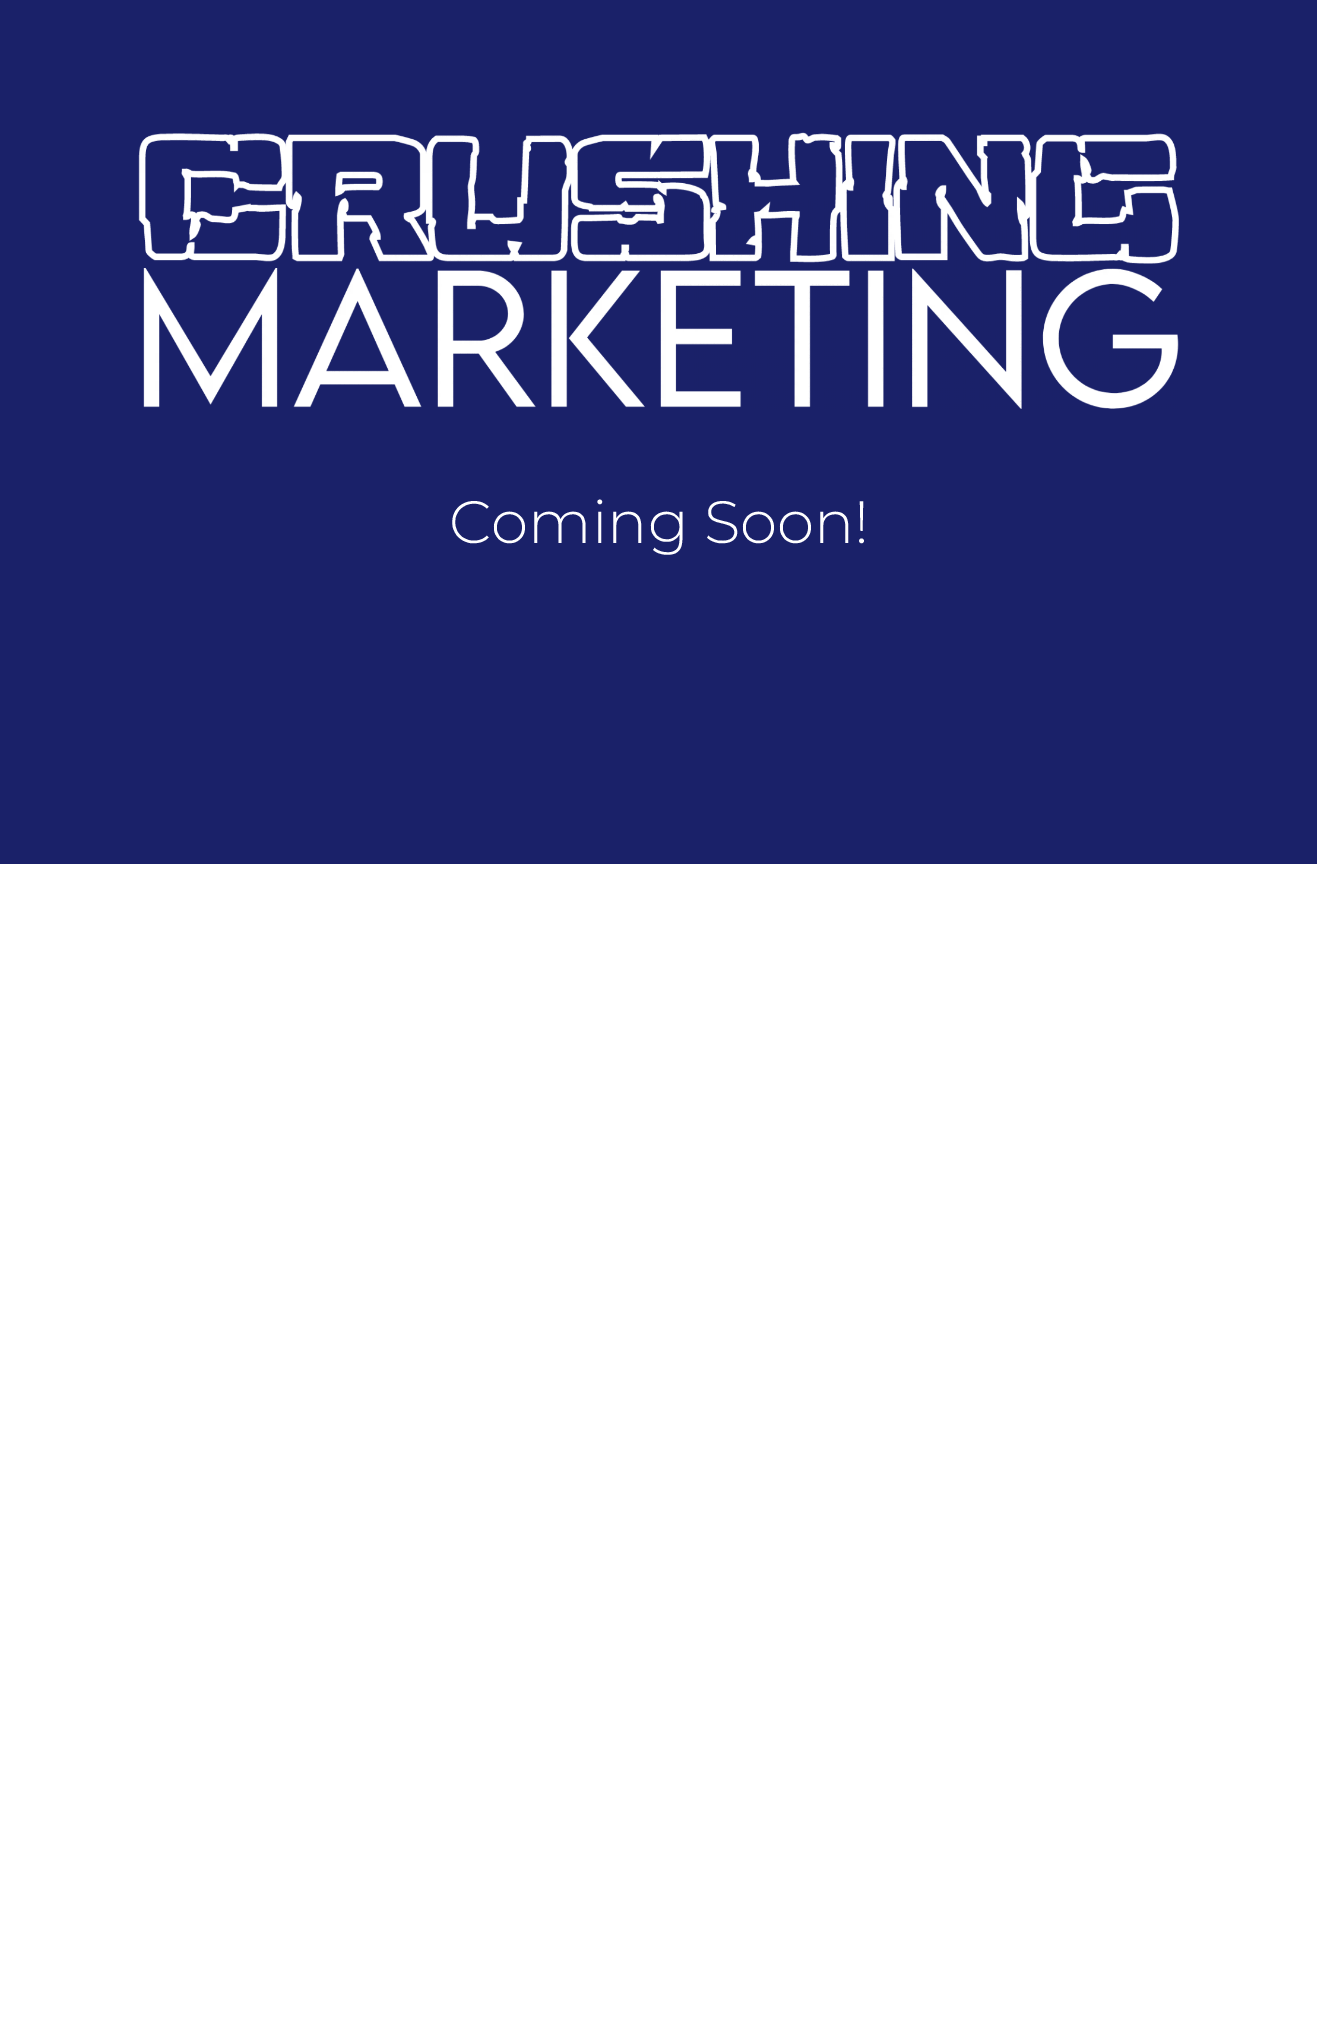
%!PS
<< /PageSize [1317 2027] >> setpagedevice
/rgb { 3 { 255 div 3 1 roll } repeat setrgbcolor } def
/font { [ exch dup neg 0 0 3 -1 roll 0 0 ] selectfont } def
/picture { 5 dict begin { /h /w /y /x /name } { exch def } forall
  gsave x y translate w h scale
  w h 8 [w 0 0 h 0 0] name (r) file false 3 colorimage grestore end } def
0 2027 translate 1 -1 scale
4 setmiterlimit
255 255 255 rgb
0 0 1317 2027 rectfill
26 33 105 rgb
0 0 1317 864 rectfill
(img/1.rgb) 138 132 1041 277 picture
/Montserrat-Light 59.75 font
255 255 255 rgb
449 543 moveto (Coming Soon!) show
showpage
